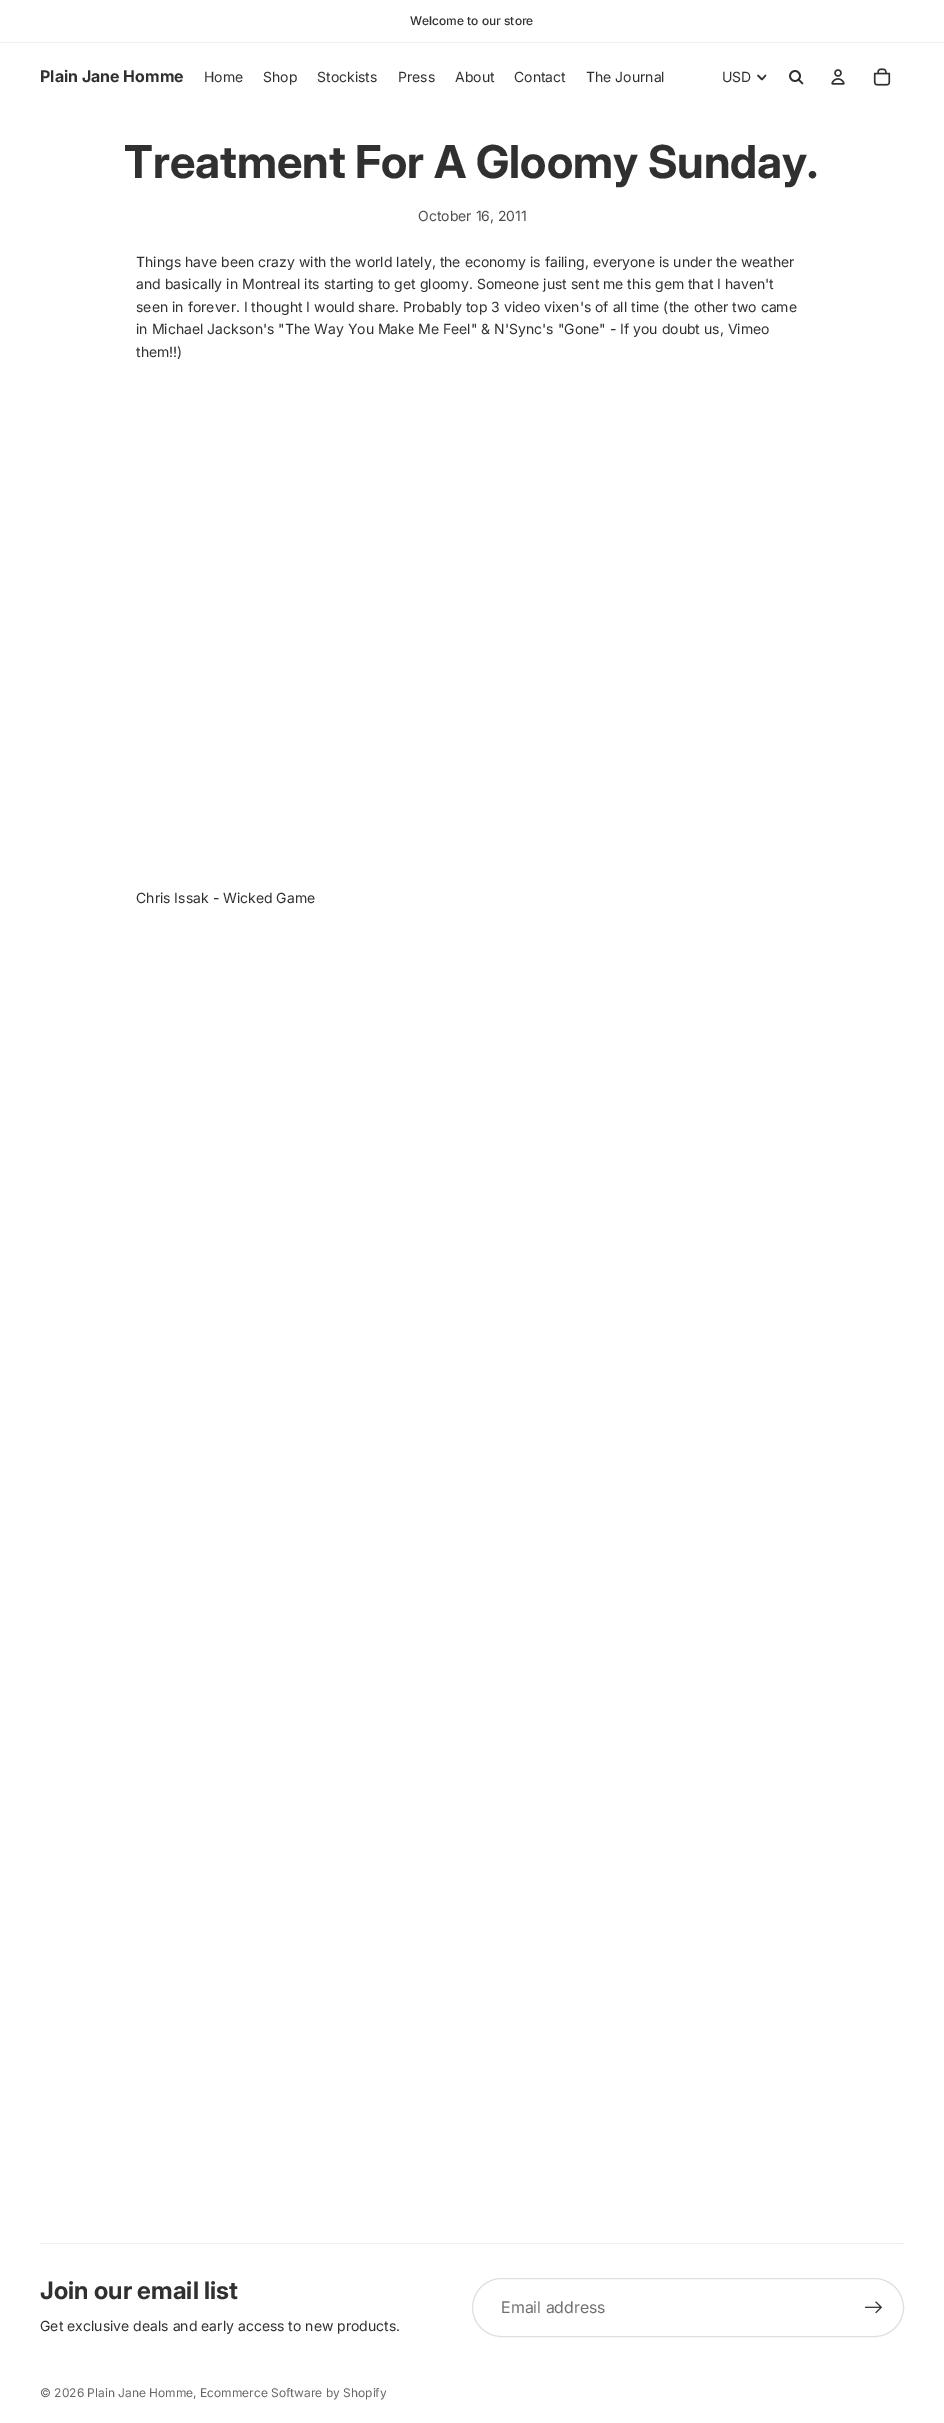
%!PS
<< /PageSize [944 2423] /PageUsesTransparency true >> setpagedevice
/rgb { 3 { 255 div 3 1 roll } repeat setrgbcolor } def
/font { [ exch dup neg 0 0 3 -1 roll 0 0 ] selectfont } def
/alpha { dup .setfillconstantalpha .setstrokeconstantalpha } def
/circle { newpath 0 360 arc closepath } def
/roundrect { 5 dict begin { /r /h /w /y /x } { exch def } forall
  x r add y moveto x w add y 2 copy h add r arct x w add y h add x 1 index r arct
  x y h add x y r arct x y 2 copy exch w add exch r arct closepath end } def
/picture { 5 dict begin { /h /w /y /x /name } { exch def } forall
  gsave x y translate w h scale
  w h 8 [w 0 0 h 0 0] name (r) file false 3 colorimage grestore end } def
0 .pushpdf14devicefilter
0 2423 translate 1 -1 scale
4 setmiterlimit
255 255 255 rgb
0 0 944 2423 rectfill
240 240 240 rgb
0 42 944 1 rectfill
48 48 48 rgb
1.5 setlinewidth
1 setlinecap
1 setlinejoin
765.5 75.5 moveto 762 79.5 lineto 758 75.5 lineto stroke
1.7 setlinewidth
0 setlinecap
0 setlinejoin
795 76 5 circle stroke
0.81 alpha
0 0 0 rgb
1 setlinecap
1 setlinejoin
799 80 moveto 802.5 83.5 lineto stroke
1 alpha
(img/1.rgb) 831 69 14 16 picture
(img/2.rgb) 873 68 18 18 picture
240 240 240 rgb
904 2243 moveto 904 2244 lineto 903 2243 lineto closepath fill
0.06 alpha
0 0 0 rgb
904 2244 moveto 40 2244 lineto 40 2243 lineto 903 2243 lineto closepath fill
1 alpha
223 223 223 rgb
1 setlinewidth
0 setlinecap
0 setlinejoin
472.5 2278.5 431 58 29 roundrect stroke
(img/3.rgb) 864 2301 18 13 picture
/Inter-Medium 12 font
48 48 48 rgb
410 25 moveto (Welcome to our store) show
/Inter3-Bold 16 font
40 82 moveto (Plain Jane Homme) show
/Inter-Regular 14 font
[
  [(Home) 204 82]
  [(Shop) 263 82]
  [(Stockists) 317 82]
  [(Press) 398 82]
  [(About) 455 82]
  [(Contact) 514 82]
  [(The Journal) 586 82]
  [(USD) 722 82]
] { aload pop moveto show } forall
/Inter-Bold 45.25 font
124 178 moveto (Treatment For A Gloomy Sunday.) show
/Inter-Regular 14 font
77 77 77 rgb
418 221 moveto (October 16, 2011) show
48 48 48 rgb
[
  [(Things have been crazy with the world lately, the economy is failing, everyone is under the weather) 136 267]
  [(and basically in Montreal its starting to get gloomy. Someone just sent me this gem that I haven't) 136 289]
  [(seen in forever. I thought I would share. Probably top 3 video vixen's of all time \(the other two came) 136 312]
  [(in Michael Jackson's "The Way You Make Me Feel" & N'Sync's "Gone" - If you doubt us, Vimeo) 136 334]
  [(them!!\)) 136 357]
  [(Chris Issak - Wicked Game) 136 903]
] { aload pop moveto show } forall
/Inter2-Bold 24 font
40 2299 moveto (Join our email list) show
/Inter-Regular 14 font
40 2331 moveto (Get exclusive deals and early access to new products.) show
/Inter2-Regular 16 font
112 112 112 rgb
501 2313 moveto (Email address) show
/Inter-Regular 12 font
102 102 102 rgb
40 2397 moveto (© 2026 Plain Jane Homme, Ecommerce Software by Shopify) show
.poppdf14devicefilter showpage
